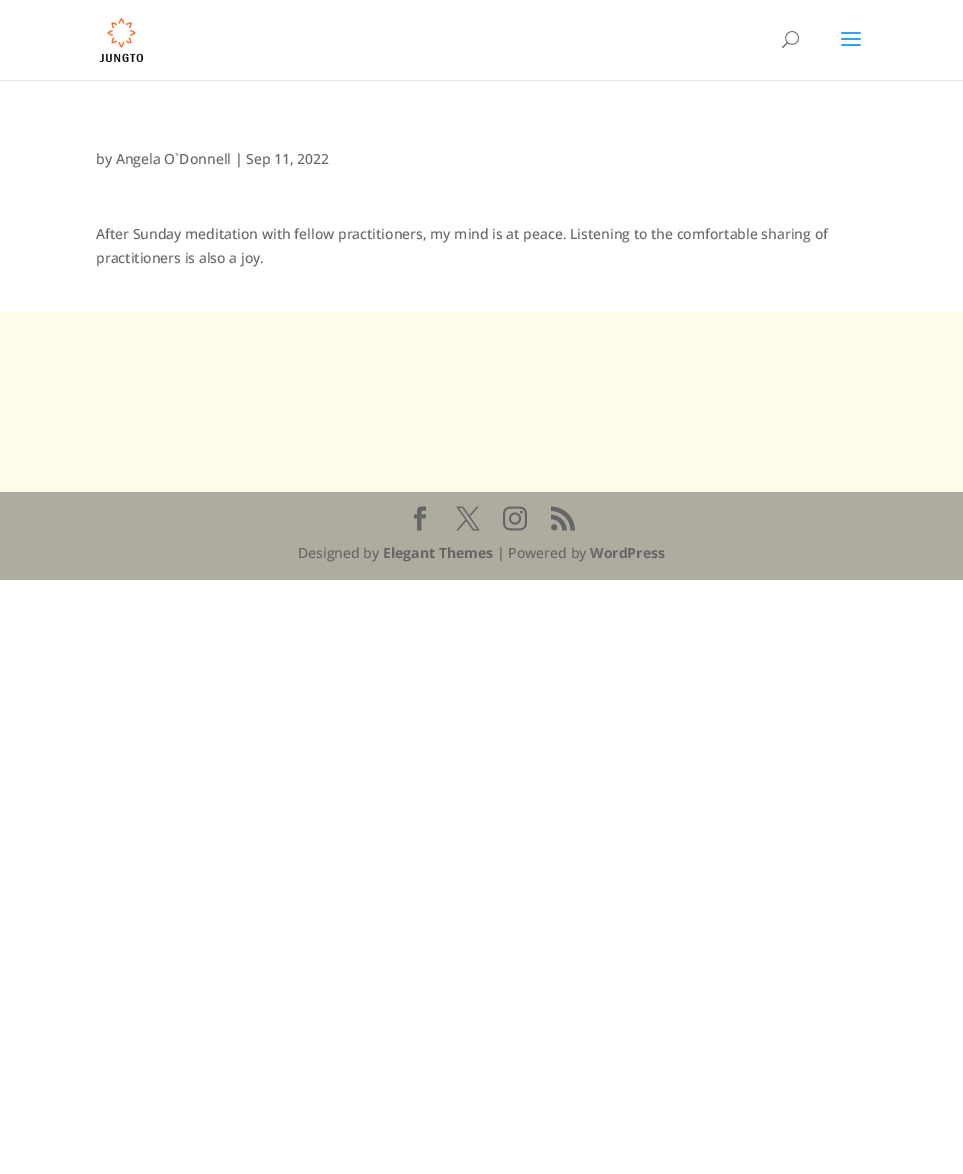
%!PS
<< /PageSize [963 1174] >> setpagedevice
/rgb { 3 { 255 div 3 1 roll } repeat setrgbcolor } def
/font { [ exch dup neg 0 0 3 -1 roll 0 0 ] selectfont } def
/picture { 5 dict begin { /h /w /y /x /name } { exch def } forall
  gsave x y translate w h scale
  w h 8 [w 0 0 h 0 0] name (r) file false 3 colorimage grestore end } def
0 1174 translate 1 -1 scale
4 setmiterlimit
255 255 255 rgb
0 0 963 1174 rectfill
230 230 230 rgb
0 80 963 1 rectfill
(img/1.rgb) 100 18 43 44 picture
(img/2.rgb) 782 31 17 18 picture
(img/3.rgb) 841 32 20 14 picture
255 252 234 rgb
0 311 963 181 rectfill
174 171 159 rgb
0 492 963 88 rectfill
(img/4.rgb) 414 506 12 25 picture
(img/5.rgb) 456 506 24 25 picture
(img/6.rgb) 503 506 24 25 picture
(img/7.rgb) 551 506 24 25 picture
/OpenSans-Medium 14 font
102 102 102 rgb
[
  [(by Angela O`Donnell | Sep 11, 2022) 96 164]
  [(After Sunday meditation with fellow practitioners, my mind is at peace. Listening to the comfortable sharing of) 96 239]
  [(practitioners is also a joy.) 96 263]
  [(Designed by) 298 558]
] { aload pop moveto show } forall
/OpenSans-Bold 14 font
383 558 moveto (Elegant Themes) show
/OpenSans-Medium 14 font
497 558 moveto (| Powered by) show
/OpenSans-Bold 14 font
590 558 moveto (WordPress) show
showpage
